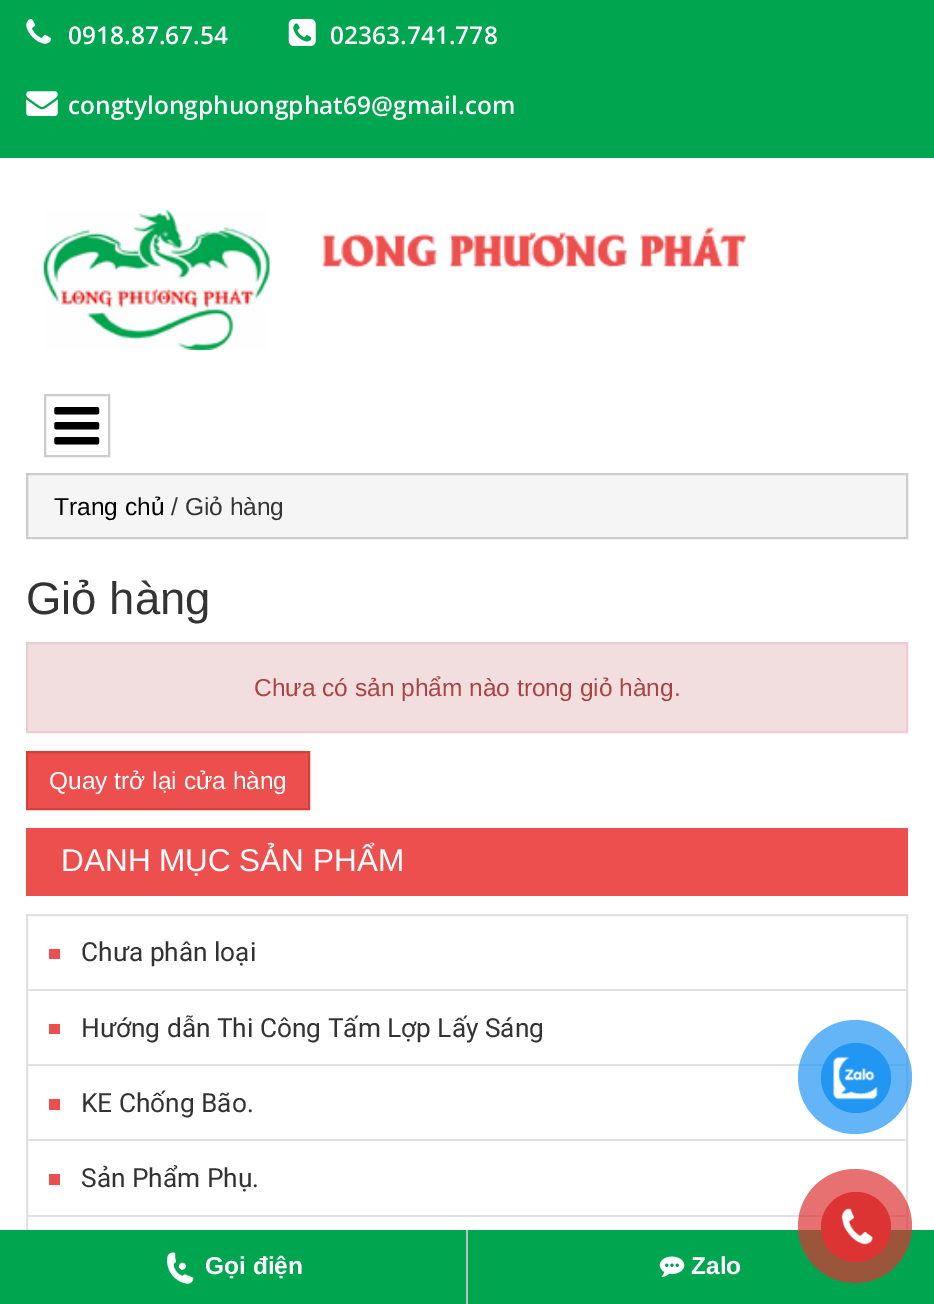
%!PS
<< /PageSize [934 1304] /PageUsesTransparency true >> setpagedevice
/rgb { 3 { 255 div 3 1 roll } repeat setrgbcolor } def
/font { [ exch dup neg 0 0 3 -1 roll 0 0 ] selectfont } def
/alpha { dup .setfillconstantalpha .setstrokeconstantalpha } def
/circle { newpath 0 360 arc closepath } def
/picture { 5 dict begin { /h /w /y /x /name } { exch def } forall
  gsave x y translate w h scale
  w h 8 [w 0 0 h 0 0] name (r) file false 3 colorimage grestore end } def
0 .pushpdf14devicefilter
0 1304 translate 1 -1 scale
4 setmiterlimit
255 255 255 rgb
0 0 934 1304 rectfill
0 165 79 rgb
0 0 934 158 rectfill
(img/1.rgb) 26 19 25 25 picture
(img/2.rgb) 288 19 28 27 picture
(img/3.rgb) 26 91 32 25 picture
(img/4.rgb) 43 210 703 140 picture
204 204 204 rgb
2 setlinewidth
45 395 64 61 rectstroke
(img/5.rgb) 54 407 46 38 picture
245 245 245 rgb
27 474 moveto 907 474 lineto 907 538 lineto 27 538 lineto closepath gsave fill grestore
204 204 204 rgb
stroke
242 222 222 rgb
27 643 moveto 907 643 lineto 907 732 lineto 27 732 lineto closepath gsave fill grestore
235 204 209 rgb
stroke
236 79 77 rgb
27 752 moveto 309 752 lineto 309 809 lineto 27 809 lineto closepath gsave fill grestore
212 63 58 rgb
stroke
236 79 77 rgb
26 828 882 68 rectfill
225 225 225 rgb
27 915 880 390 rectstroke
[
  [28 989 879 2 225 225 225]
  [49 949 11 10 236 79 77]
  [28 1064 879 2 225 225 225]
  [49 1024 11 10 236 79 77]
  [28 1139 879 2 225 225 225]
  [49 1099 11 11 236 79 77]
  [28 1215 879 2 225 225 225]
  [49 1174 11 11 236 79 77]
] { aload pop rgb rectfill } forall
0.7 alpha
33 150 243 rgb
855 1077 57 circle fill
1 alpha
856 1078 35 circle fill
(img/6.rgb) 833 1056 45 44 picture
0 165 79 rgb
0 1230 934 74 rectfill
0.7 alpha
221 51 51 rgb
855 1226 57 circle fill
1 alpha
856 1227 35 circle fill
(img/7.rgb) 841 1208 32 37 picture
190 190 190 rgb
466 1230 2 74 rectfill
(img/8.rgb) 167 1252 27 32 picture
(img/9.rgb) 659 1256 26 21 picture
/OpenSans-SemiBold 24.5 font
255 255 255 rgb
[
  [(0918.87.67.54) 68 44]
  [(02363.741.778) 330 44]
  [(congtylongphuongphat69@gmail.com) 68 114]
] { aload pop moveto show } forall
/LiberationSans-Regular 24.5 font
0 0 0 rgb
54 515 moveto (Trang chủ) show
51 51 51 rgb
171 515 moveto (/ Giỏ hàng) show
/LiberationSans-Regular 45.5 font
26 614 moveto (Giỏ hàng) show
/LiberationSans-Regular 24.5 font
169 68 66 rgb
254 696 moveto (Chưa có sản phẩm nào trong giỏ hàng.) show
255 255 255 rgb
49 789 moveto (Quay trở lại cửa hàng) show
/LiberationSans-Regular 31.5 font
61 871 moveto (DANH MỤC SẢN PHẨM) show
/Roboto-Regular 26.25 font
51 51 51 rgb
[
  [(Chưa phân loại) 81 961]
  [(Hướng dẫn Thi Công Tấm Lợp Lấy Sáng) 81 1037]
  [(KE Chống Bão.) 81 1112]
  [(Sản Phẩm Phụ.) 81 1187]
] { aload pop moveto show } forall
/LiberationSans-Bold 24.5 font
255 255 255 rgb
205 1274 moveto (Gọi điện) show
691 1274 moveto (Zalo) show
.poppdf14devicefilter showpage
